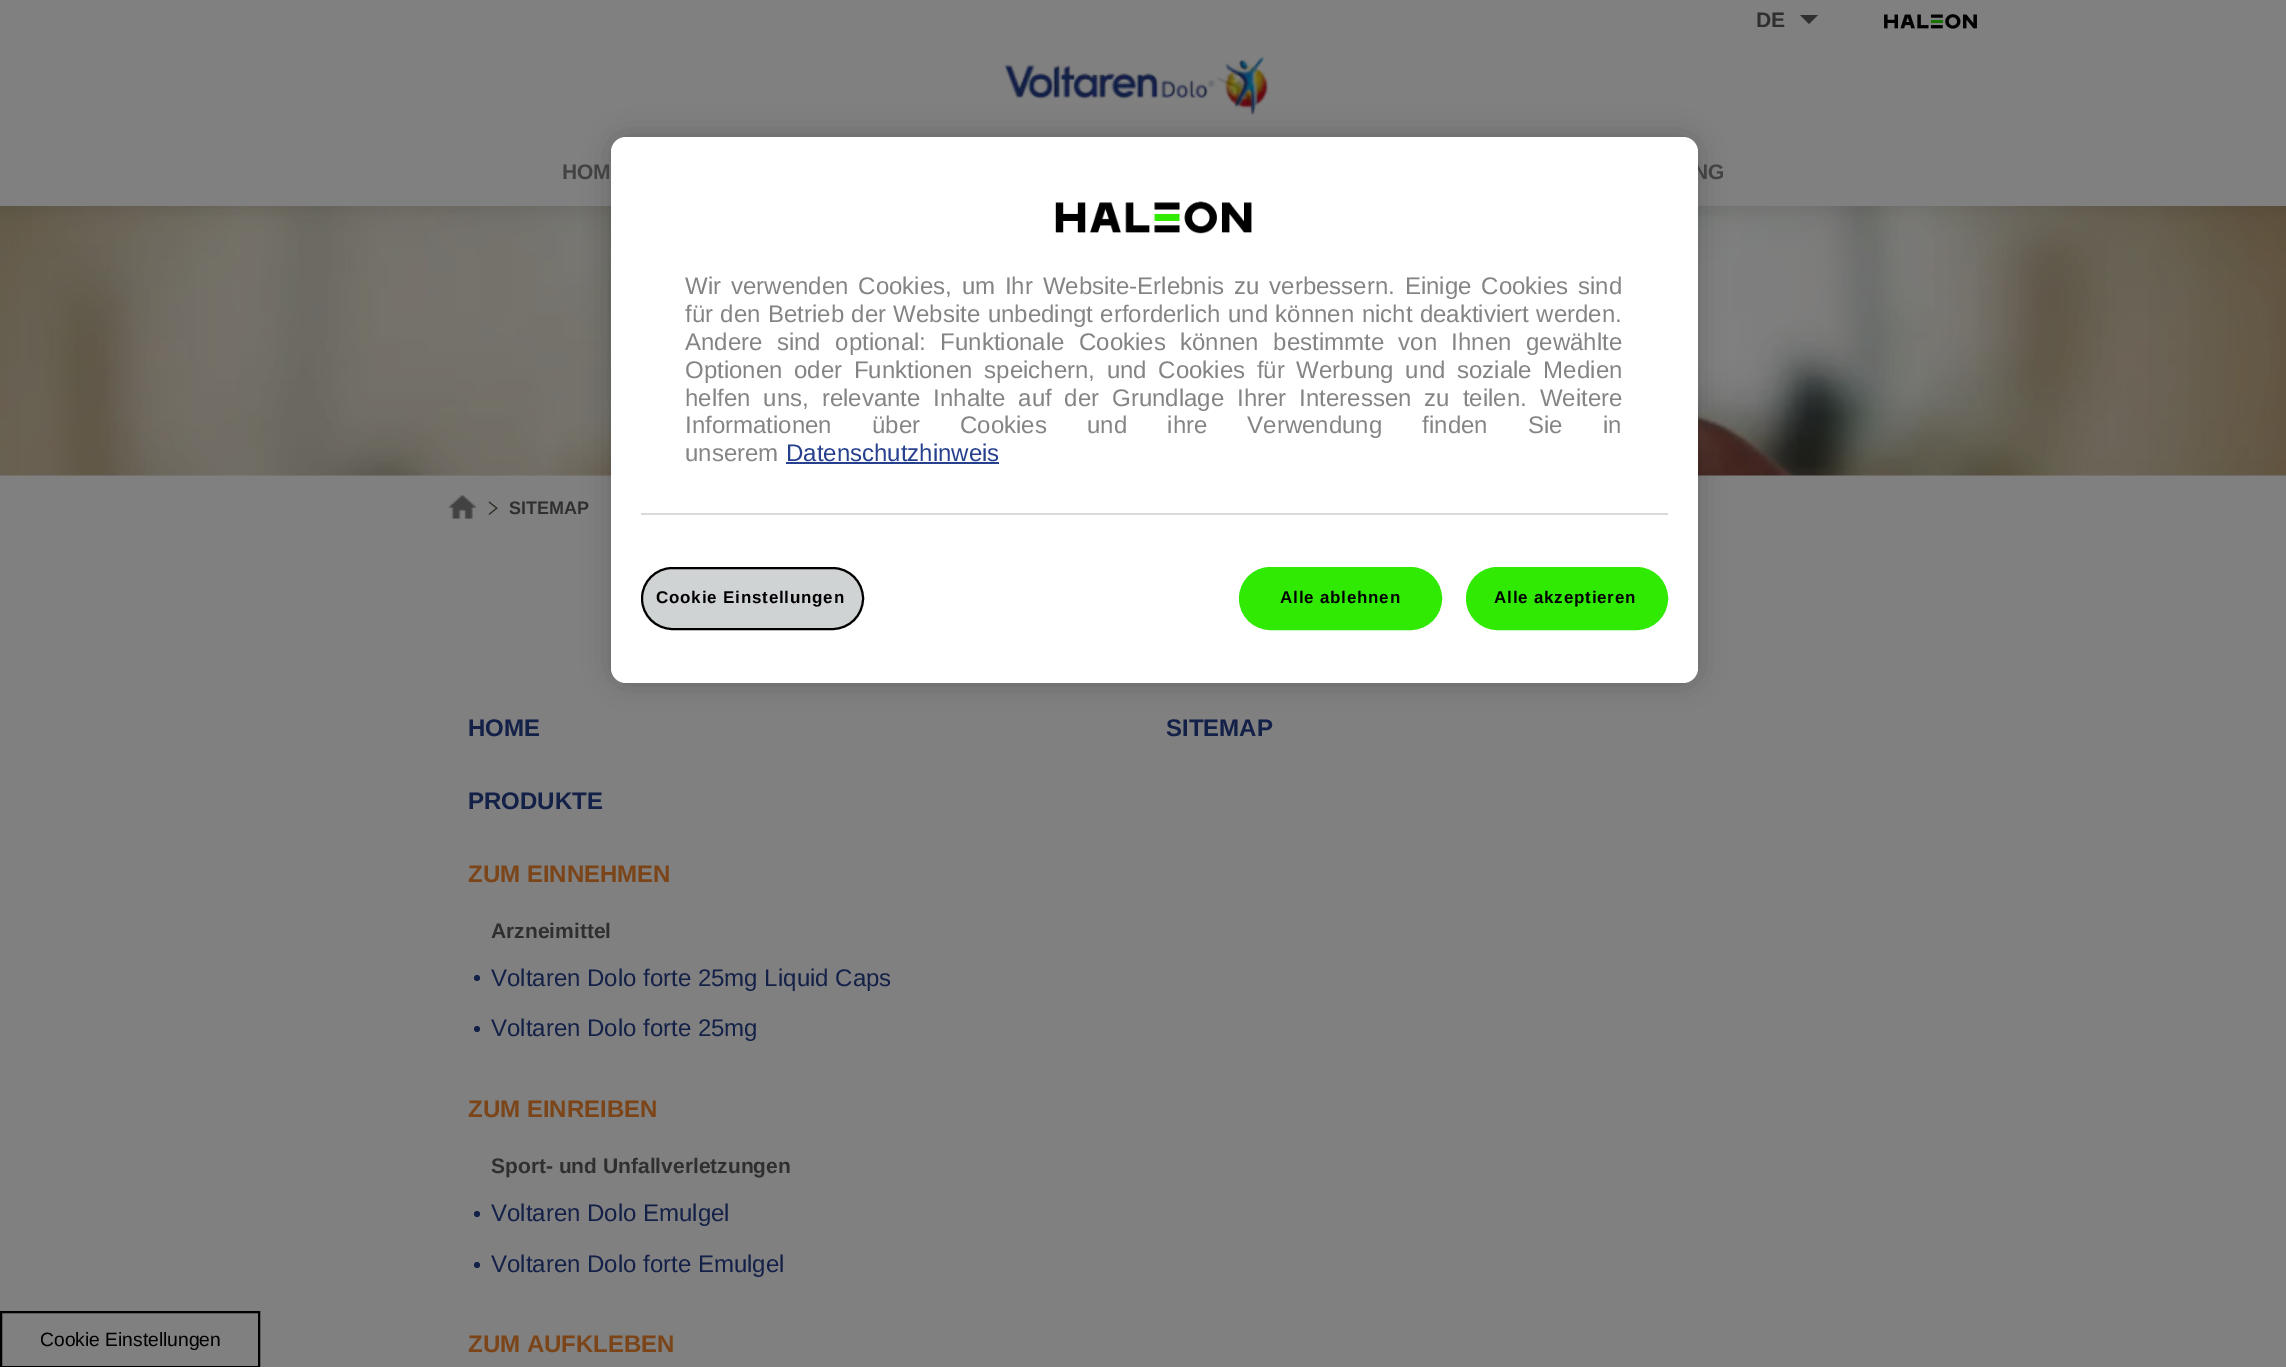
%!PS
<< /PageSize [2286 1367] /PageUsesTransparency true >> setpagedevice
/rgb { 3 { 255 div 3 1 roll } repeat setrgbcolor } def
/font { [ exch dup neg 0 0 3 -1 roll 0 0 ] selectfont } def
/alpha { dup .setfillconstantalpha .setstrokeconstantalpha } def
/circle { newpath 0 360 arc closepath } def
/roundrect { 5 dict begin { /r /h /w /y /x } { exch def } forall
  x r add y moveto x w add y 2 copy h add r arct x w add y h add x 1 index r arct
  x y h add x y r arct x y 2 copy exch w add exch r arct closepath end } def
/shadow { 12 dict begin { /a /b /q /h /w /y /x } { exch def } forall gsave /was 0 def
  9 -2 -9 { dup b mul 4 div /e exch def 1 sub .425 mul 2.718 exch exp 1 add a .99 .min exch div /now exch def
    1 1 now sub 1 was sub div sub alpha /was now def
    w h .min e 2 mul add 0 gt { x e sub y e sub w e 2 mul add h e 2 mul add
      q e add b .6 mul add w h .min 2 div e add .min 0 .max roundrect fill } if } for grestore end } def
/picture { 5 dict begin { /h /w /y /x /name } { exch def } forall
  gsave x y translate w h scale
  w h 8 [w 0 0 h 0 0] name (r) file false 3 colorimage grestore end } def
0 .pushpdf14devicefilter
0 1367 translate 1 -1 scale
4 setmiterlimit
128 128 128 rgb
0 0 2286 1367 rectfill
48 46 46 rgb
1800 15 moveto 1818 15 lineto 1809 24 lineto closepath fill
(img/1.rgb) 1884 14 93 15 picture
(img/2.rgb) 1005 56 264 59 picture
(img/3.rgb) 0 206 2286 270 picture
(img/4.rgb) 448 495 29 24 picture
(img/5.rgb) 488 501 10 14 picture
19 32 71 rgb
477 978 3 circle fill
477 1029 3 circle fill
477 1214 3 circle fill
477 1265 3 circle fill
0 0 0 rgb
611 137 1087 546 15 13.5 0.2 shadow
2 setlinewidth
1 1312 258 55 rectstroke
/LiberationSans-Bold 21 font
48 46 46 rgb
1756 27 moveto (DE) show
66 66 66 rgb
562 179 moveto (HOM) show
1693 179 moveto (NG) show
/LiberationSans-Bold 18 font
48 46 46 rgb
509 514 moveto (SITEMAP) show
/LiberationSans-Bold 24 font
19 32 71 rgb
468 736 moveto (HOME) show
468 809 moveto (PRODUKTE) show
123 69 25 rgb
468 882 moveto (ZUM EINNEHMEN) show
/LiberationSans-Bold 21 font
48 46 46 rgb
491 938 moveto (Arzneimittel) show
/LiberationSans-Regular 24 font
19 32 71 rgb
491 986 moveto (Voltaren Dolo forte 25mg Liquid Caps) show
491 1036 moveto (Voltaren Dolo forte 25mg) show
/LiberationSans-Bold 24 font
123 69 25 rgb
468 1117 moveto (ZUM EINREIBEN) show
/LiberationSans-Bold 21 font
48 46 46 rgb
491 1173 moveto (Sport- und Unfallverletzungen) show
/LiberationSans-Regular 24 font
19 32 71 rgb
491 1221 moveto (Voltaren Dolo Emulgel) show
491 1272 moveto (Voltaren Dolo forte Emulgel) show
/LiberationSans-Bold 24 font
123 69 25 rgb
468 1352 moveto (ZUM AUFKLEBEN) show
19 32 71 rgb
1166 736 moveto (SITEMAP) show
255 255 255 rgb
611 137 1087 546 15 roundrect fill
(img/6.rgb) 1055 201 197 33 picture
/LiberationSans-Regular 24 font
132 132 132 rgb
685 294 moveto 3.25 0 32 (Wir verwenden Cookies, um Ihr Website-Erlebnis zu verbessern. Einige Cookies sind) widthshow
685 322 moveto 0.75 0 32 (für den Betrieb der Website unbedingt erforderlich und können nicht deaktiviert werden.) widthshow
685 350 moveto 7.75 0 32 (Andere sind optional: Funktionale Cookies können bestimmte von Ihnen gewählte) widthshow
685 378 moveto 5 0 32 (Optionen oder Funktionen speichern, und Cookies für Werbung und soziale Medien) widthshow
685 406 moveto 6.25 0 32 (helfen uns, relevante Inhalte auf der Grundlage Ihrer Interessen zu teilen. Weitere) widthshow
685 433 moveto 33.5 0 32 (Informationen über Cookies und ihre Verwendung finden Sie in) widthshow
685 461 moveto (unserem) show
38 64 142 rgb
786 461 moveto (Datenschutzhinweis) show
786 462 213 2 rectfill
217 217 217 rgb
641 513 1027 2 rectfill
208 211 212 rgb
642 568 221 61 30.5 roundrect gsave fill grestore
0 0 0 rgb
stroke
/LiberationSans-Bold 17 font
656 603 moveto 0.8 0 (Cookie Einstellungen) ashow
48 234 3 rgb
1240 568 201 61 30.5 roundrect gsave fill grestore
stroke
0 0 0 rgb
1280 603 moveto 0.8 0 (Alle ablehnen) ashow
48 234 3 rgb
1467 568 200 61 30.5 roundrect gsave fill grestore
stroke
0 0 0 rgb
1494 603 moveto 0.8 0 (Alle akzeptieren) ashow
/LiberationSans-Regular 19.25 font
40 1346 moveto (Cookie Einstellungen) show
.poppdf14devicefilter showpage
